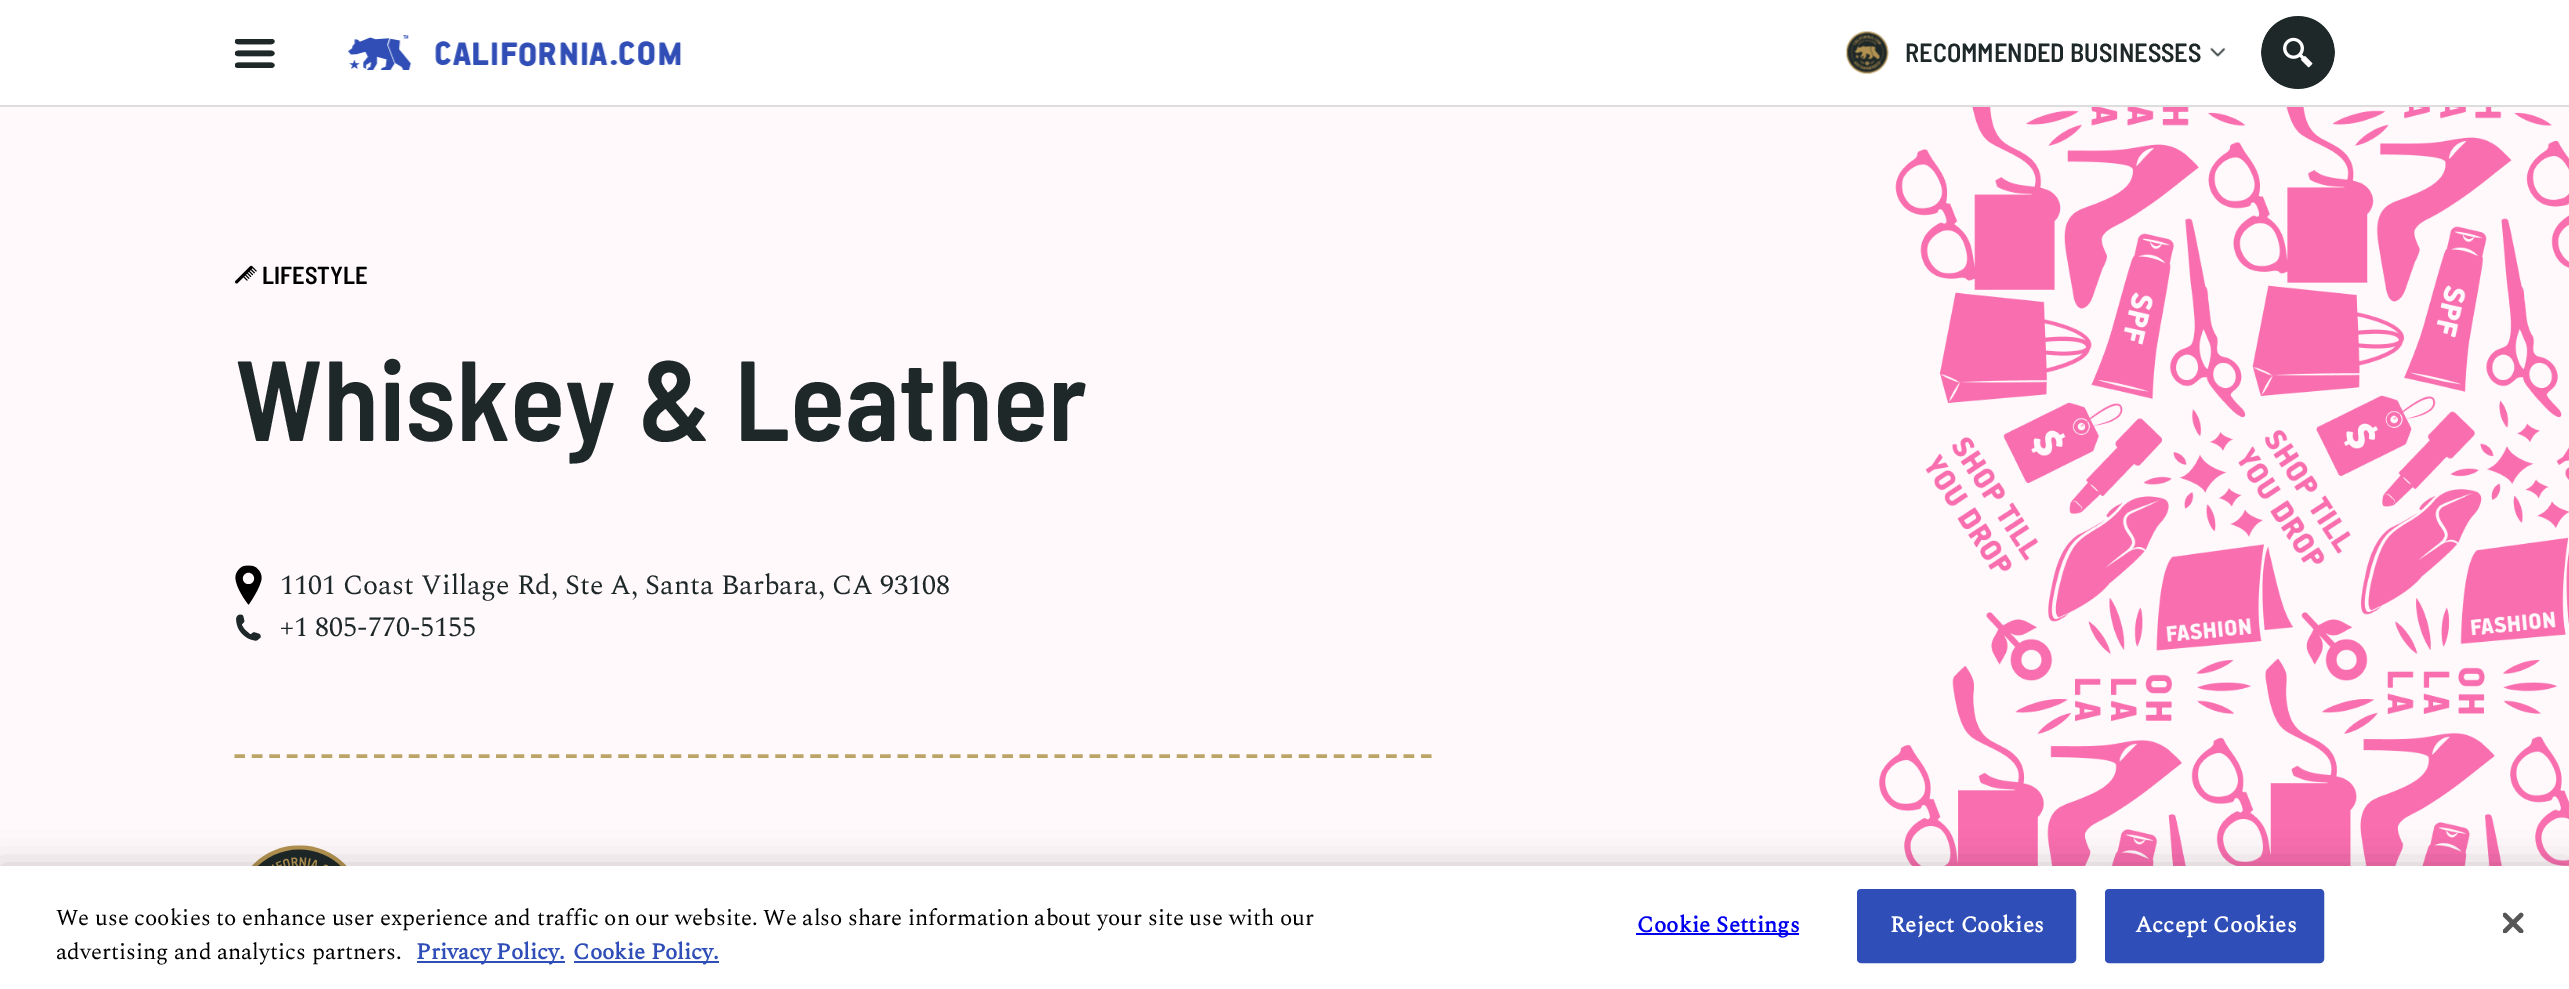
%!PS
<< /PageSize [2569 989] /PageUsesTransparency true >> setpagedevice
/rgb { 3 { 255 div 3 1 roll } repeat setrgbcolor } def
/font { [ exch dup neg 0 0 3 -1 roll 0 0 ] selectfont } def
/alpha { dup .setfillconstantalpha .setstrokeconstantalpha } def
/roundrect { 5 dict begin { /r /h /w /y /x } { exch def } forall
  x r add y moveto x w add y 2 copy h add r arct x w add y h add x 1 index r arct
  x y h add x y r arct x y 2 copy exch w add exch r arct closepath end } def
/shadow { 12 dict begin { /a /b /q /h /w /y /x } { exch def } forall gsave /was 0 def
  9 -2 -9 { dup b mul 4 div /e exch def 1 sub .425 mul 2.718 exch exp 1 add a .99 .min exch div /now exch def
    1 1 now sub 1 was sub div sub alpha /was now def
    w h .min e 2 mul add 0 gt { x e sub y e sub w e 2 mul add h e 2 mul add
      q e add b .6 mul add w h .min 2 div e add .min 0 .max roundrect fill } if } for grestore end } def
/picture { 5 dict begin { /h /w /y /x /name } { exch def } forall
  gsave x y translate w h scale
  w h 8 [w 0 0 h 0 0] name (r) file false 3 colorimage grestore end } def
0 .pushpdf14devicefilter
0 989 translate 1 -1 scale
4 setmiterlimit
255 249 252 rgb
0 0 2569 989 rectfill
255 255 255 rgb
0 0 2569 105 rectfill
221 221 221 rgb
0 105 2569 2 rectfill
(img/1.rgb) 235 39 40 29 picture
(img/2.rgb) 348 35 334 35 picture
(img/3.rgb) 1846 31 43 43 picture
(img/4.rgb) 2210 47 16 10 picture
(img/5.rgb) 2261 16 74 73 picture
(img/6.rgb) 235 265 22 19 picture
(img/7.rgb) 235 565 27 40 picture
(img/8.rgb) 236 614 25 27 picture
188 164 102 rgb
3.5 setlinewidth
[10.5 6.95] 0 setdash
234.5 756 moveto 1431.5 756 lineto stroke
(img/9.rgb) 251 845 96 21 picture
(img/10.rgb) 1879 107 690 759 picture
0 0 0 rgb
0 866 2569 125 0 16 0.2 shadow
[
  [0 866 2569 123 255 255 255]
  [417 961 148 2 48 78 183]
  [574 961 145 2 48 78 183]
  [1636 933 163 2 0 0 238]
] { aload pop rgb rectfill } forall
48 78 183 rgb
1858 890 217 72 3 roundrect gsave fill grestore
2 setlinewidth
[] 0 setdash
stroke
2106 890 217 72 3 roundrect gsave fill grestore
stroke
(img/11.rgb) 2503 912 21 21 picture
/BarlowSemiCondensed-SemiBold 26.25 font
30 40 40 rgb
1905 62 moveto (RECOMMENDED BUSINESSES) show
/BarlowSemiCondensed-SemiBold 24.5 font
0 0 0 rgb
262 284 moveto (LIFESTYLE) show
/BarlowSemiCondensed-SemiBold 113.75 font
30 40 40 rgb
235 441 moveto (Whiskey & Leather) show
/Spectral-Regular 28 font
280 594 moveto (1101 Coast Village Rd, Ste A, Santa Barbara, CA 93108) show
280 636 moveto (+1 805-770-5155) show
/Spectral-Regular 22.75 font
0 0 0 rgb
56 925 moveto (We use cookies to enhance user experience and traffic on our website. We also share information about your site use with our) show
56 959 moveto (advertising and analytics partners.) show
/Spectral-Bold 22.75 font
48 78 183 rgb
416 959 moveto (Privacy Policy.) show
573 959 moveto (Cookie Policy.) show
0 0 238 rgb
1637 932 moveto 0.25 0 (Cookie Settings) ashow
255 255 255 rgb
1890 932 moveto 0.25 0 (Reject Cookies) ashow
2135 932 moveto 0.25 0 (Accept Cookies) ashow
.poppdf14devicefilter showpage
